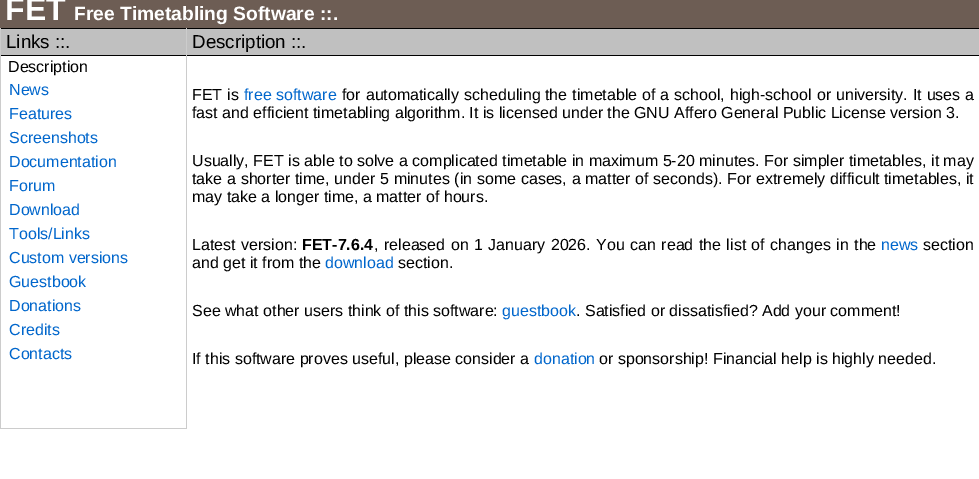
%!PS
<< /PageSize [979 479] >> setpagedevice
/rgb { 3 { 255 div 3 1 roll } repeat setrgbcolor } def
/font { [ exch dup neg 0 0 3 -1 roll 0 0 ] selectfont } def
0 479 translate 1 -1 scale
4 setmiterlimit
255 255 255 rgb
0 0 979 479 rectfill
[
  [0 0 979 28 109 93 84]
  [186 28 1 401 204 204 204]
  [0 428 187 1 204 204 204]
  [0 28 1 401 204 204 204]
  [1 29 185 26 192 192 192]
  [1 28 185 1 0 0 0]
  [1 55 185 1 0 0 0]
  [187 29 792 26 192 192 192]
  [187 28 792 1 0 0 0]
  [187 55 792 1 0 0 0]
] { aload pop rgb rectfill } forall
/LiberationSans-Bold 32 font
255 255 255 rgb
5 20 moveto (FET) show
/LiberationSans-Bold 19.25 font
74 20 moveto (Free Timetabling Software ::.) show
/LiberationSans-Regular 18.75 font
0 0 0 rgb
6 48 moveto (Links ::.) show
/LiberationSans-Regular 16 font
8 72 moveto (Description) show
0 102 204 rgb
[
  [(News) 9 95]
  [(Features) 9 119]
  [(Screenshots) 9 143]
  [(Documentation) 9 167]
  [(Forum) 9 191]
  [(Download) 9 215]
  [(Tools/Links) 9 239]
  [(Custom versions) 9 263]
  [(Guestbook) 9 287]
  [(Donations) 9 311]
  [(Credits) 9 335]
  [(Contacts) 9 359]
] { aload pop moveto show } forall
/LiberationSans-Regular 18.75 font
0 0 0 rgb
192 48 moveto (Description ::.) show
/LiberationSans-Regular 16 font
192 100 moveto 0.5 0 32 (FET is) widthshow
0 102 204 rgb
244 100 moveto (free software) show
0 0 0 rgb
342 100 moveto 0.5 0 32 (for automatically scheduling) widthshow
545 100 moveto 0.5 0 32 (the timetable of a school, high-school or university. It uses a) widthshow
192 118 moveto (fast and efficient timetabling algorithm. It is licensed under the GNU Affero General Public License version 3.) show
192 166 moveto 0.1 0 32 (Usually, FET is able to solve a complicated timetable in maximum 5-20 minutes. For simpler timetables,) widthshow
931 166 moveto (it may) show
192 184 moveto 0.25 0 32 (take a shorter time, under 5 minutes \(in some cases, a matter of seconds\). For extremely difficult) widthshow
884 184 moveto (timetables, it) show
192 202 moveto (may take a longer time, a matter of hours.) show
192 250 moveto 1 0 32 (Latest version:) widthshow
/LiberationSans-Bold 16 font
302 250 moveto (FET-7.6.4) show
/LiberationSans-Regular 16 font
374 250 moveto 1 0 32 (, released on 1 January 2026. You can read the list of changes in the) widthshow
0 102 204 rgb
881 250 moveto (news) show
0 0 0 rgb
923 250 moveto (section) show
192 268 moveto (and get it from the) show
0 102 204 rgb
325 268 moveto (download) show
0 0 0 rgb
398 268 moveto (section.) show
192 316 moveto (See what other users think of this software:) show
0 102 204 rgb
502 316 moveto (guestbook) show
0 0 0 rgb
576 316 moveto (. Satisfied or dissatisfied? Add your comment!) show
192 364 moveto (If this software proves useful, please consider a) show
0 102 204 rgb
534 364 moveto (donation) show
0 0 0 rgb
599 364 moveto (or sponsorship! Financial help is highly needed.) show
showpage
